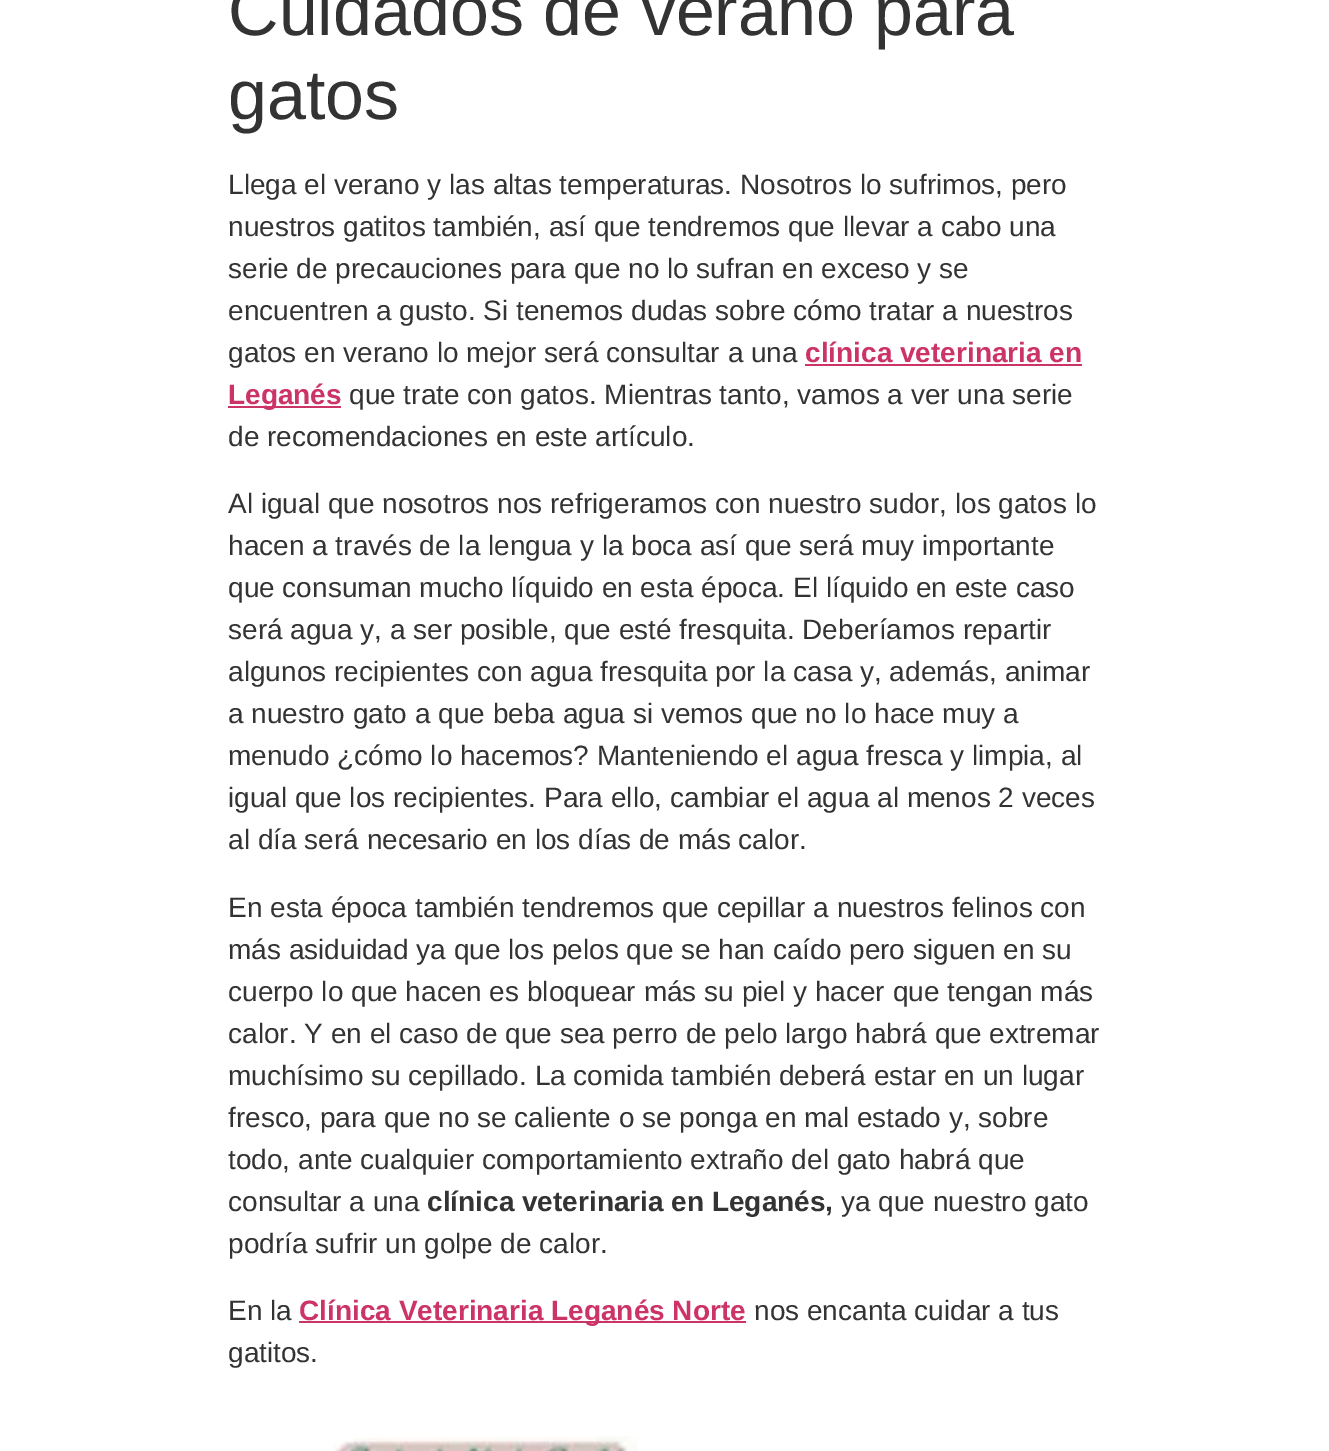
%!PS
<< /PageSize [1329 1451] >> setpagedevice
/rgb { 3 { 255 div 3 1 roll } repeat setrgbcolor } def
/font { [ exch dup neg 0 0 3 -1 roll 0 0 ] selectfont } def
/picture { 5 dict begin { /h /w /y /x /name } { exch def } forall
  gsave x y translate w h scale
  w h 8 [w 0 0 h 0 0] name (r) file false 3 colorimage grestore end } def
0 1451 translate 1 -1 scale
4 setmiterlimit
255 255 255 rgb
0 0 1329 1451 rectfill
[
  [805 364 277 2 204 51 102]
  [228 406 113 2 204 51 102]
  [299 1321 447 2 204 51 102]
] { aload pop rgb rectfill } forall
(img/1.rgb) 333 1436 305 15 picture
/LiberationSans-Regular 70 font
51 51 51 rgb
228 35 moveto (Cuidados de verano para) show
228 119 moveto (gatos) show
/LiberationSans-Regular 28 font
[
  [(Llega el verano y las altas temperaturas. Nosotros lo sufrimos, pero) 228 194]
  [(nuestros gatitos también, así que tendremos que llevar a cabo una) 228 236]
  [(serie de precauciones para que no lo sufran en exceso y se) 228 278]
  [(encuentren a gusto. Si tenemos dudas sobre cómo tratar a nuestros) 228 320]
  [(gatos en verano lo mejor será consultar a una) 228 362]
] { aload pop moveto show } forall
/LiberationSans-Bold 28 font
204 51 102 rgb
805 362 moveto (clínica veterinaria en) show
228 404 moveto (Leganés) show
/LiberationSans-Regular 28 font
51 51 51 rgb
[
  [(que trate con gatos. Mientras tanto, vamos a ver una serie) 349 404]
  [(de recomendaciones en este artículo.) 228 446]
  [(Al igual que nosotros nos refrigeramos con nuestro sudor, los gatos lo) 228 513]
  [(hacen a través de la lengua y la boca así que será muy importante) 228 555]
  [(que consuman mucho líquido en esta época. El líquido en este caso) 228 597]
  [(será agua y, a ser posible, que esté fresquita. Deberíamos repartir) 228 639]
  [(algunos recipientes con agua fresquita por la casa y, además, animar) 228 681]
  [(a nuestro gato a que beba agua si vemos que no lo hace muy a) 228 723]
  [(menudo ¿cómo lo hacemos? Manteniendo el agua fresca y limpia, al) 228 765]
  [(igual que los recipientes. Para ello, cambiar el agua al menos 2 veces) 228 807]
  [(al día será necesario en los días de más calor.) 228 849]
  [(En esta época también tendremos que cepillar a nuestros felinos con) 228 917]
  [(más asiduidad ya que los pelos que se han caído pero siguen en su) 228 959]
  [(cuerpo lo que hacen es bloquear más su piel y hacer que tengan más) 228 1001]
  [(calor. Y en el caso de que sea perro de pelo largo habrá que extremar) 228 1043]
  [(muchísimo su cepillado. La comida también deberá estar en un lugar) 228 1085]
  [(fresco, para que no se caliente o se ponga en mal estado y, sobre) 228 1127]
  [(todo, ante cualquier comportamiento extraño del gato habrá que) 228 1169]
  [(consultar a una) 228 1211]
] { aload pop moveto show } forall
/LiberationSans-Bold 28 font
427 1211 moveto (clínica veterinaria en Leganés,) show
/LiberationSans-Regular 28 font
[
  [(ya que nuestro gato) 841 1211]
  [(podría sufrir un golpe de calor.) 228 1253]
  [(En la) 228 1320]
] { aload pop moveto show } forall
/LiberationSans-Bold 28 font
204 51 102 rgb
299 1320 moveto (Clínica Veterinaria Leganés Norte) show
/LiberationSans-Regular 28 font
51 51 51 rgb
754 1320 moveto (nos encanta cuidar a tus) show
228 1362 moveto (gatitos.) show
showpage
